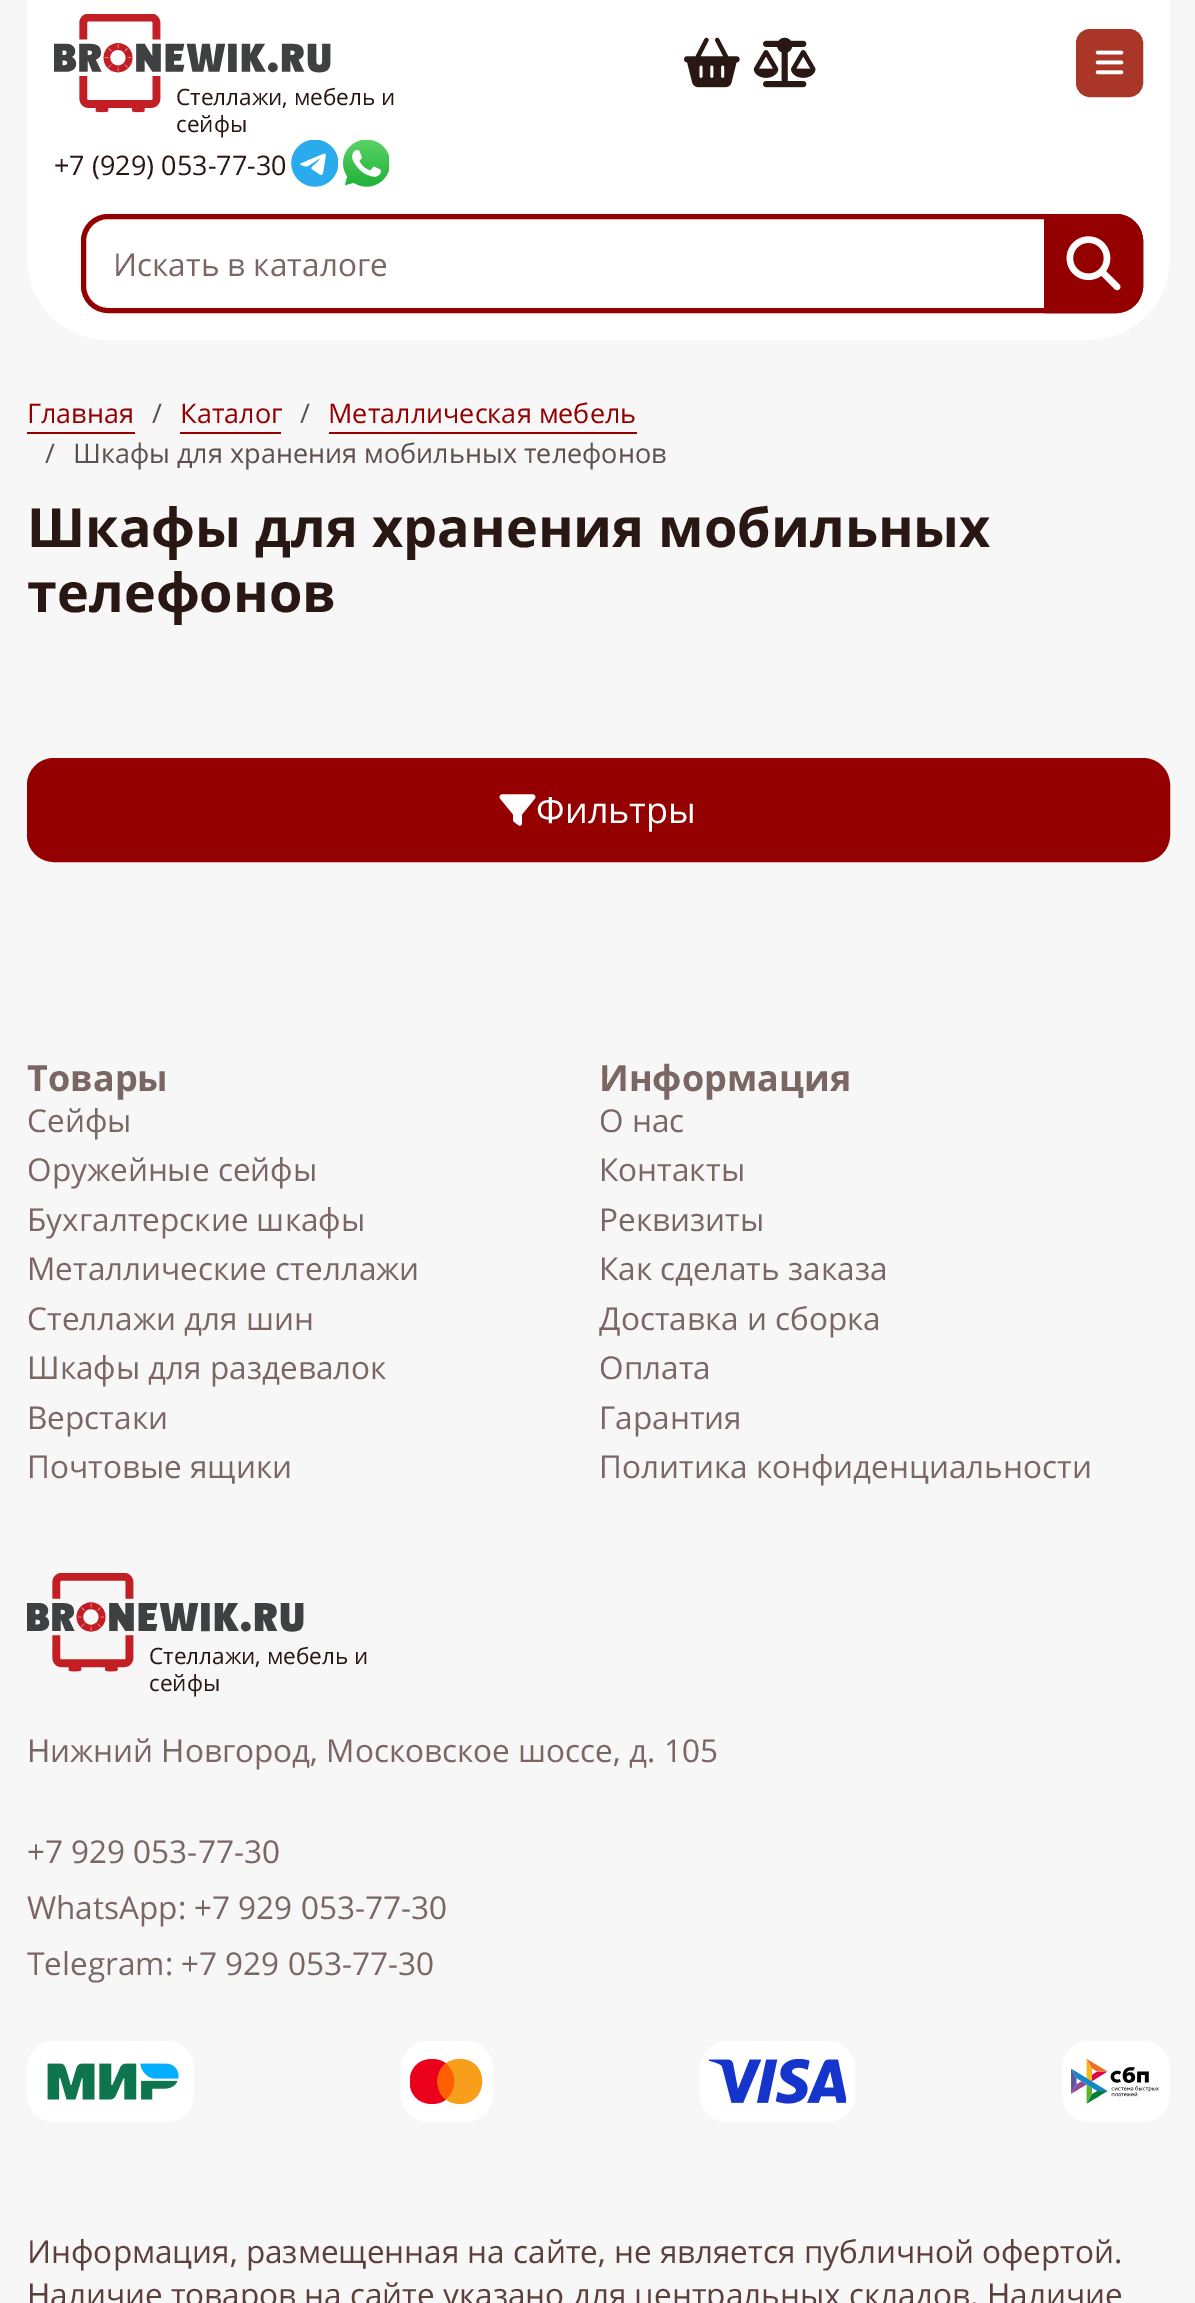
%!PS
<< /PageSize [1195 2303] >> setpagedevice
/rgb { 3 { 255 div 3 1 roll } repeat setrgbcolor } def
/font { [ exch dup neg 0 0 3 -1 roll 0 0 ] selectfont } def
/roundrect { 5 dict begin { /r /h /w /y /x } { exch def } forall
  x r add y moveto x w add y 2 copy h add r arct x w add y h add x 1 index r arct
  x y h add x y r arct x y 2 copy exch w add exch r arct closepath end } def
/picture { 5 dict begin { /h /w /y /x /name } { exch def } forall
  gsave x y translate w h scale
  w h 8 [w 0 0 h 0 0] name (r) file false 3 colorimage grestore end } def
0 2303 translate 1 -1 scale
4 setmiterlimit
248 247 247 rgb
0 0 1195 2303 rectfill
255 255 255 rgb
27 0 moveto 1170 0 lineto 1170 259 lineto 1170 303.5 1133.5 340 1089 340 curveto 108 340 lineto 63.5 340 27 303.5 27 259 curveto closepath fill
(img/1.rgb) 684 37 56 51 picture
(img/2.rgb) 753 37 63 51 picture
170 54 40 rgb
1077 30 65 66 13 roundrect gsave fill grestore
2 setlinewidth
stroke
(img/3.rgb) 1095 50 29 25 picture
(img/4.rgb) 54 14 277 99 picture
(img/5.rgb) 291 140 47 47 picture
(img/6.rgb) 343 140 46 47 picture
148 0 0 rgb
5 setlinewidth
83.5 216.5 1057 94 24.5 roundrect stroke
1046.5 216.5 moveto 1116 216.5 lineto 1129.5 216.5 1140.5 227.5 1140.5 241 curveto 1140.5 286 lineto 1140.5 299.5 1129.5 310.5 1116 310.5 curveto 1046.5 310.5 lineto closepath gsave fill grestore
stroke
(img/7.rgb) 1066 236 55 55 picture
[
  [27 432 108 2 148 0 0]
  [180 432 101 2 148 0 0]
  [329 432 308 2 148 0 0]
] { aload pop rgb rectfill } forall
28 759 1141 102 26 roundrect gsave fill grestore
2 setlinewidth
stroke
(img/8.rgb) 499 794 37 32 picture
(img/9.rgb) 27 1573 277 99 picture
255 255 255 rgb
27 2041 167 81 27 roundrect fill
(img/10.rgb) 47 2063 132 37 picture
401 2041 92 81 27 roundrect fill
gsave
410 2059 74 45 rectclip
235 0 27 rgb
432 2059 moveto 402 2059 402 2104 432 2104 curveto 462 2104 462 2059 432 2059 curveto closepath eofill
grestore
247 158 27 rgb
460 2059 moveto 430 2059 430 2104 460 2104 curveto 489 2104 490 2059 460 2059 curveto closepath eofill
255 95 0 rgb
446 2063.5 moveto 434.5 2072.5 434.5 2090 446 2099 curveto 457 2090 457 2072.5 446 2063.5 curveto closepath eofill
255 255 255 rgb
700 2041 155 81 27 roundrect fill
(img/11.rgb) 709 2059 137 45 picture
1062 2041 108 81 27 roundrect fill
(img/12.rgb) 1071 2059 88 45 picture
/OpenSans-Regular 22.5 font
41 23 20 rgb
176 105 moveto (Стеллажи, мебель и) show
176 132 moveto (сейфы) show
/OpenSans-Regular 27 font
54 175 moveto (+7 \(929\) 053-77-30) show
/OpenSans-Regular 31.5 font
122 103 100 rgb
113 276 moveto (Искать в каталоге) show
/OpenSans-Regular 27 font
148 0 0 rgb
27 423 moveto (Главная) show
93 79 77 rgb
152 423 moveto (/) show
148 0 0 rgb
180 423 moveto (Каталог) show
93 79 77 rgb
300 423 moveto (/) show
148 0 0 rgb
328 423 moveto (Металлическая мебель) show
93 79 77 rgb
45 463 moveto (/) show
73 463 moveto (Шкафы для хранения мобильных телефонов) show
/OpenSans-Bold 54 font
41 23 20 rgb
27 547 moveto (Шкафы для хранения мобильных) show
27 612 moveto (телефонов) show
/OpenSans-Regular 36 font
255 255 255 rgb
536 823 moveto (Фильтры) show
/OpenSans-Bold 36 font
122 103 100 rgb
27 1091 moveto (Товары) show
/OpenSans-Regular 31.5 font
[
  [(Сейфы) 27 1132]
  [(Оружейные сейфы) 27 1181]
  [(Бухгалтерские шкафы) 27 1231]
  [(Металлические стеллажи) 27 1280]
  [(Стеллажи для шин) 27 1330]
  [(Шкафы для раздевалок) 27 1379]
  [(Верстаки) 27 1429]
  [(Почтовые ящики) 27 1478]
] { aload pop moveto show } forall
/OpenSans-Bold 36 font
599 1091 moveto (Информация) show
/OpenSans-Regular 31.5 font
[
  [(О нас) 599 1132]
  [(Контакты) 599 1181]
  [(Реквизиты) 599 1231]
  [(Как сделать заказа) 599 1280]
  [(Доставка и сборка) 599 1330]
  [(Оплата) 599 1379]
  [(Гарантия) 599 1429]
  [(Политика конфиденциальности) 599 1478]
] { aload pop moveto show } forall
/OpenSans-Regular 22.5 font
41 23 20 rgb
149 1664 moveto (Стеллажи, мебель и) show
149 1691 moveto (сейфы) show
/OpenSans-Regular 31.5 font
122 103 100 rgb
[
  [(Нижний Новгород, Московское шоссе, д. 105) 27 1762]
  [(+7 929 053-77-30) 27 1863]
  [(WhatsApp: +7 929 053-77-30) 27 1919]
  [(Telegram: +7 929 053-77-30) 27 1975]
] { aload pop moveto show } forall
93 63 59 rgb
27 2263 moveto (Информация, размещенная на сайте, не является публичной офертой.) show
27 2306 moveto (Наличие товаров на сайте указано для центральных складов. Наличие) show
showpage
